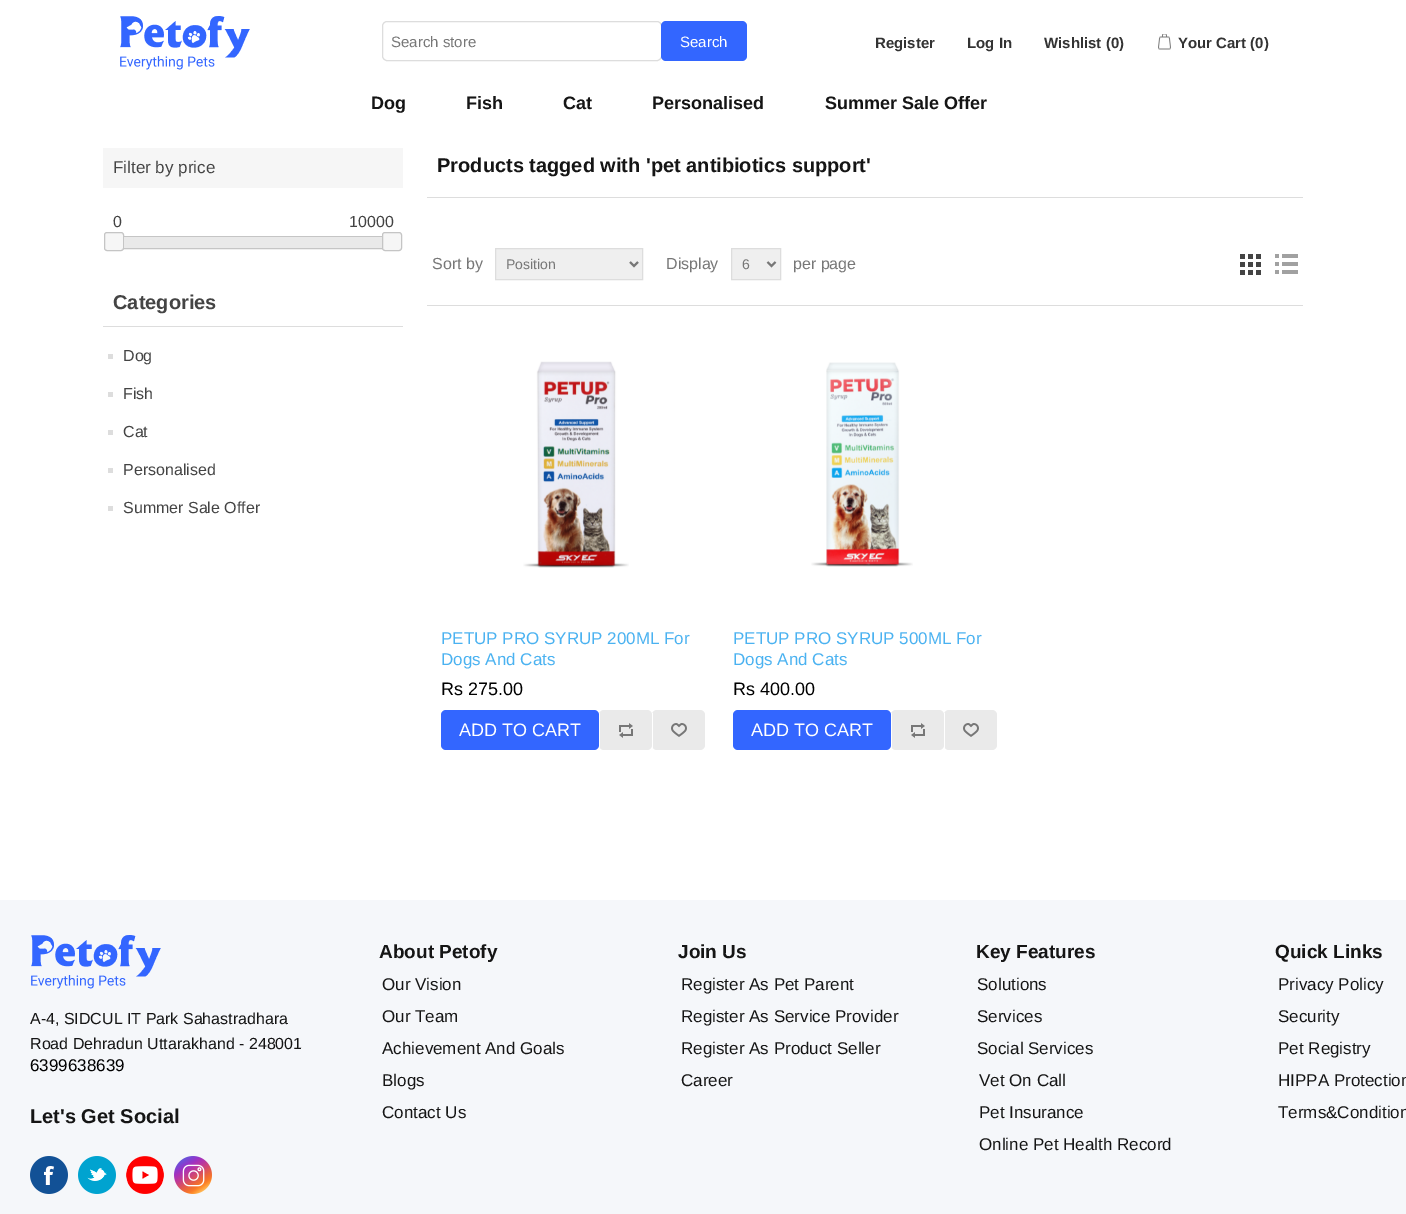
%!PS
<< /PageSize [1406 1214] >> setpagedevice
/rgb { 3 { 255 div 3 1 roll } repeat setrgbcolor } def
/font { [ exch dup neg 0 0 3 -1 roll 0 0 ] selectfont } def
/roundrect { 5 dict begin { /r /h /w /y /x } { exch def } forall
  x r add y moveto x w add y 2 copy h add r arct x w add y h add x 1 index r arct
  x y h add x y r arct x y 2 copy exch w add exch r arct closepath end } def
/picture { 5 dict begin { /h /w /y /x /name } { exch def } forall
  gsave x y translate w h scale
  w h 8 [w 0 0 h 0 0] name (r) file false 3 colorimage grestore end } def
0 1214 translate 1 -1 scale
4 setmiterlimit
255 255 255 rgb
0 0 1406 1214 rectfill
(img/1.rgb) 120 16 130 54 picture
221 221 221 rgb
382.5 21.5 279 39 4.5 roundrect stroke
51 102 255 rgb
661 21 86 40 5 roundrect fill
(img/2.rgb) 1158 34 13 16 picture
246 246 246 rgb
103 148 300 40 rectfill
197 197 197 rgb
113.5 236.5 279 12 rectstroke
246 246 246 rgb
104.5 232.5 19 18 2.5 roundrect gsave fill grestore
197 197 197 rgb
stroke
233 233 233 rgb
124 237 258 11 rectfill
246 246 246 rgb
382.5 232.5 19 18 2.5 roundrect gsave fill grestore
197 197 197 rgb
stroke
[
  [103 326 300 1 221 221 221]
  [108 354 5 5 221 221 221]
  [108 392 5 5 221 221 221]
  [108 430 5 5 221 221 221]
  [108 468 5 5 221 221 221]
  [108 506 5 5 221 221 221]
  [427 197 876 1 221 221 221]
  [427 305 876 1 221 221 221]
] { aload pop rgb rectfill } forall
239 239 239 rgb
495.5 248.5 moveto 642.5 248.5 lineto 642.5 279.5 lineto 495.5 279.5 lineto closepath gsave fill grestore
221 221 221 rgb
stroke
119 119 119 rgb
2 setlinewidth
630 262 moveto 634 266 lineto 638 262 lineto stroke
239 239 239 rgb
731.5 248.5 moveto 780.5 248.5 lineto 780.5 279.5 lineto 731.5 279.5 lineto closepath gsave fill grestore
221 221 221 rgb
1 setlinewidth
stroke
119 119 119 rgb
2 setlinewidth
767.5 262 moveto 771.5 266 lineto 775.5 262 lineto stroke
(img/3.rgb) 1240 254 21 21 picture
(img/4.rgb) 1275 254 23 20 picture
(img/5.rgb) 523 361 106 207 picture
51 102 255 rgb
441 710 158 40 5 roundrect fill
234 234 234 rgb
599 710 53 40 5 roundrect fill
(img/6.rgb) 619 723 14 15 picture
255 255 255 rgb
599 713 1 35 rectfill
234 234 234 rgb
652 710 53 40 5 roundrect fill
(img/7.rgb) 671 723 16 14 picture
255 255 255 rgb
652 713 1 35 rectfill
(img/8.rgb) 811 362 102 205 picture
51 102 255 rgb
733 710 158 40 5 roundrect fill
234 234 234 rgb
891 710 53 40 5 roundrect fill
(img/6.rgb) 911 723 14 15 picture
255 255 255 rgb
891 713 1 35 rectfill
234 234 234 rgb
944 710 53 40 5 roundrect fill
(img/7.rgb) 963 723 16 14 picture
255 255 255 rgb
944 713 1 35 rectfill
245 247 250 rgb
0 900 1406 314 rectfill
(img/9.rgb) 31 935 130 54 picture
(img/10.rgb) 30 1156 38 38 picture
(img/11.rgb) 78 1156 38 38 picture
(img/12.rgb) 126 1156 38 38 picture
(img/13.rgb) 174 1156 38 38 picture
/LiberationSans-Regular 15 font
119 119 119 rgb
391 47 moveto (Search store) show
255 255 255 rgb
680 47 moveto (Search) show
/LiberationSans-Bold 15 font
51 51 51 rgb
[
  [(Register) 875 48]
  [(Log In) 967 48]
  [(Wishlist \(0\)) 1044 48]
  [(Your Cart \(0\)) 1178 48]
] { aload pop moveto show } forall
/LiberationSans-Bold 18 font
21 21 21 rgb
[
  [(Dog) 371 109]
  [(Fish) 466 109]
  [(Cat) 563 109]
  [(Personalised) 652 109]
  [(Summer Sale Offer) 825 109]
] { aload pop moveto show } forall
/LiberationSans-Regular 17 font
68 68 68 rgb
113 173 moveto (Filter by price) show
/LiberationSans-Regular 16 font
113 227 moveto (0) show
349 227 moveto (10000) show
/LiberationSans-Bold 20 font
113 309 moveto (Categories) show
/LiberationSans-Regular 16 font
[
  [(Dog) 123 361]
  [(Fish) 123 399]
  [(Cat) 123 437]
  [(Personalised) 123 475]
  [(Summer Sale Offer) 123 513]
] { aload pop moveto show } forall
/LiberationSans-Bold 20 font
21 21 21 rgb
437 172 moveto (Products tagged with 'pet antibiotics support') show
/LiberationSans-Regular 16 font
119 119 119 rgb
432 269 moveto (Sort by) show
/LiberationSans-Regular 14 font
506 269 moveto (Position) show
/LiberationSans-Regular 16 font
666 269 moveto (Display) show
/LiberationSans-Regular 14 font
742 269 moveto (6) show
/LiberationSans-Regular 16 font
793 269 moveto (per page) show
/LiberationSans-Regular 17 font
74 178 241 rgb
441 644 moveto (PETUP PRO SYRUP 200ML For) show
441 665 moveto (Dogs And Cats) show
/LiberationSans-Regular 18 font
0 0 0 rgb
441 695 moveto (Rs 275.00) show
255 255 255 rgb
459 736 moveto (ADD TO CART) show
/LiberationSans-Regular 17 font
74 178 241 rgb
733 644 moveto (PETUP PRO SYRUP 500ML For) show
733 665 moveto (Dogs And Cats) show
/LiberationSans-Regular 18 font
0 0 0 rgb
733 695 moveto (Rs 400.00) show
255 255 255 rgb
751 736 moveto (ADD TO CART) show
/LiberationSans-Regular 16 font
21 21 21 rgb
30 1024 moveto (A-4, SIDCUL IT Park Sahastradhara) show
30 1049 moveto (Road Dehradun Uttarakhand - 248001) show
/LiberationSans-Regular 17 font
0 0 0 rgb
30 1071 moveto (6399638639) show
/LiberationSans-Bold 20 font
21 21 21 rgb
30 1123 moveto (Let's Get Social) show
/LiberationSans-Bold 19 font
379 958 moveto (About Petofy) show
/LiberationSans-Regular 17 font
[
  [(Our Vision) 382 990]
  [(Our Team) 382 1022]
  [(Achievement And Goals) 382 1054]
  [(Blogs) 382 1086]
  [(Contact Us) 382 1118]
] { aload pop moveto show } forall
/LiberationSans-Bold 19 font
678 958 moveto (Join Us) show
/LiberationSans-Regular 17 font
[
  [(Register As Pet Parent) 681 990]
  [(Register As Service Provider) 681 1022]
  [(Register As Product Seller) 681 1054]
  [(Career) 681 1086]
] { aload pop moveto show } forall
/LiberationSans-Bold 19 font
976 958 moveto (Key Features) show
/LiberationSans-Regular 17 font
[
  [(Solutions) 977 990]
  [(Services) 977 1022]
  [(Social Services) 977 1054]
  [(Vet On Call) 979 1086]
  [(Pet Insurance) 979 1118]
  [(Online Pet Health Record) 979 1150]
] { aload pop moveto show } forall
/LiberationSans-Bold 19 font
1275 958 moveto (Quick Links) show
/LiberationSans-Regular 17 font
[
  [(Privacy Policy) 1278 990]
  [(Security) 1278 1022]
  [(Pet Registry) 1278 1054]
  [(HIPPA Protection) 1278 1086]
  [(Terms&Condition) 1278 1118]
] { aload pop moveto show } forall
showpage
